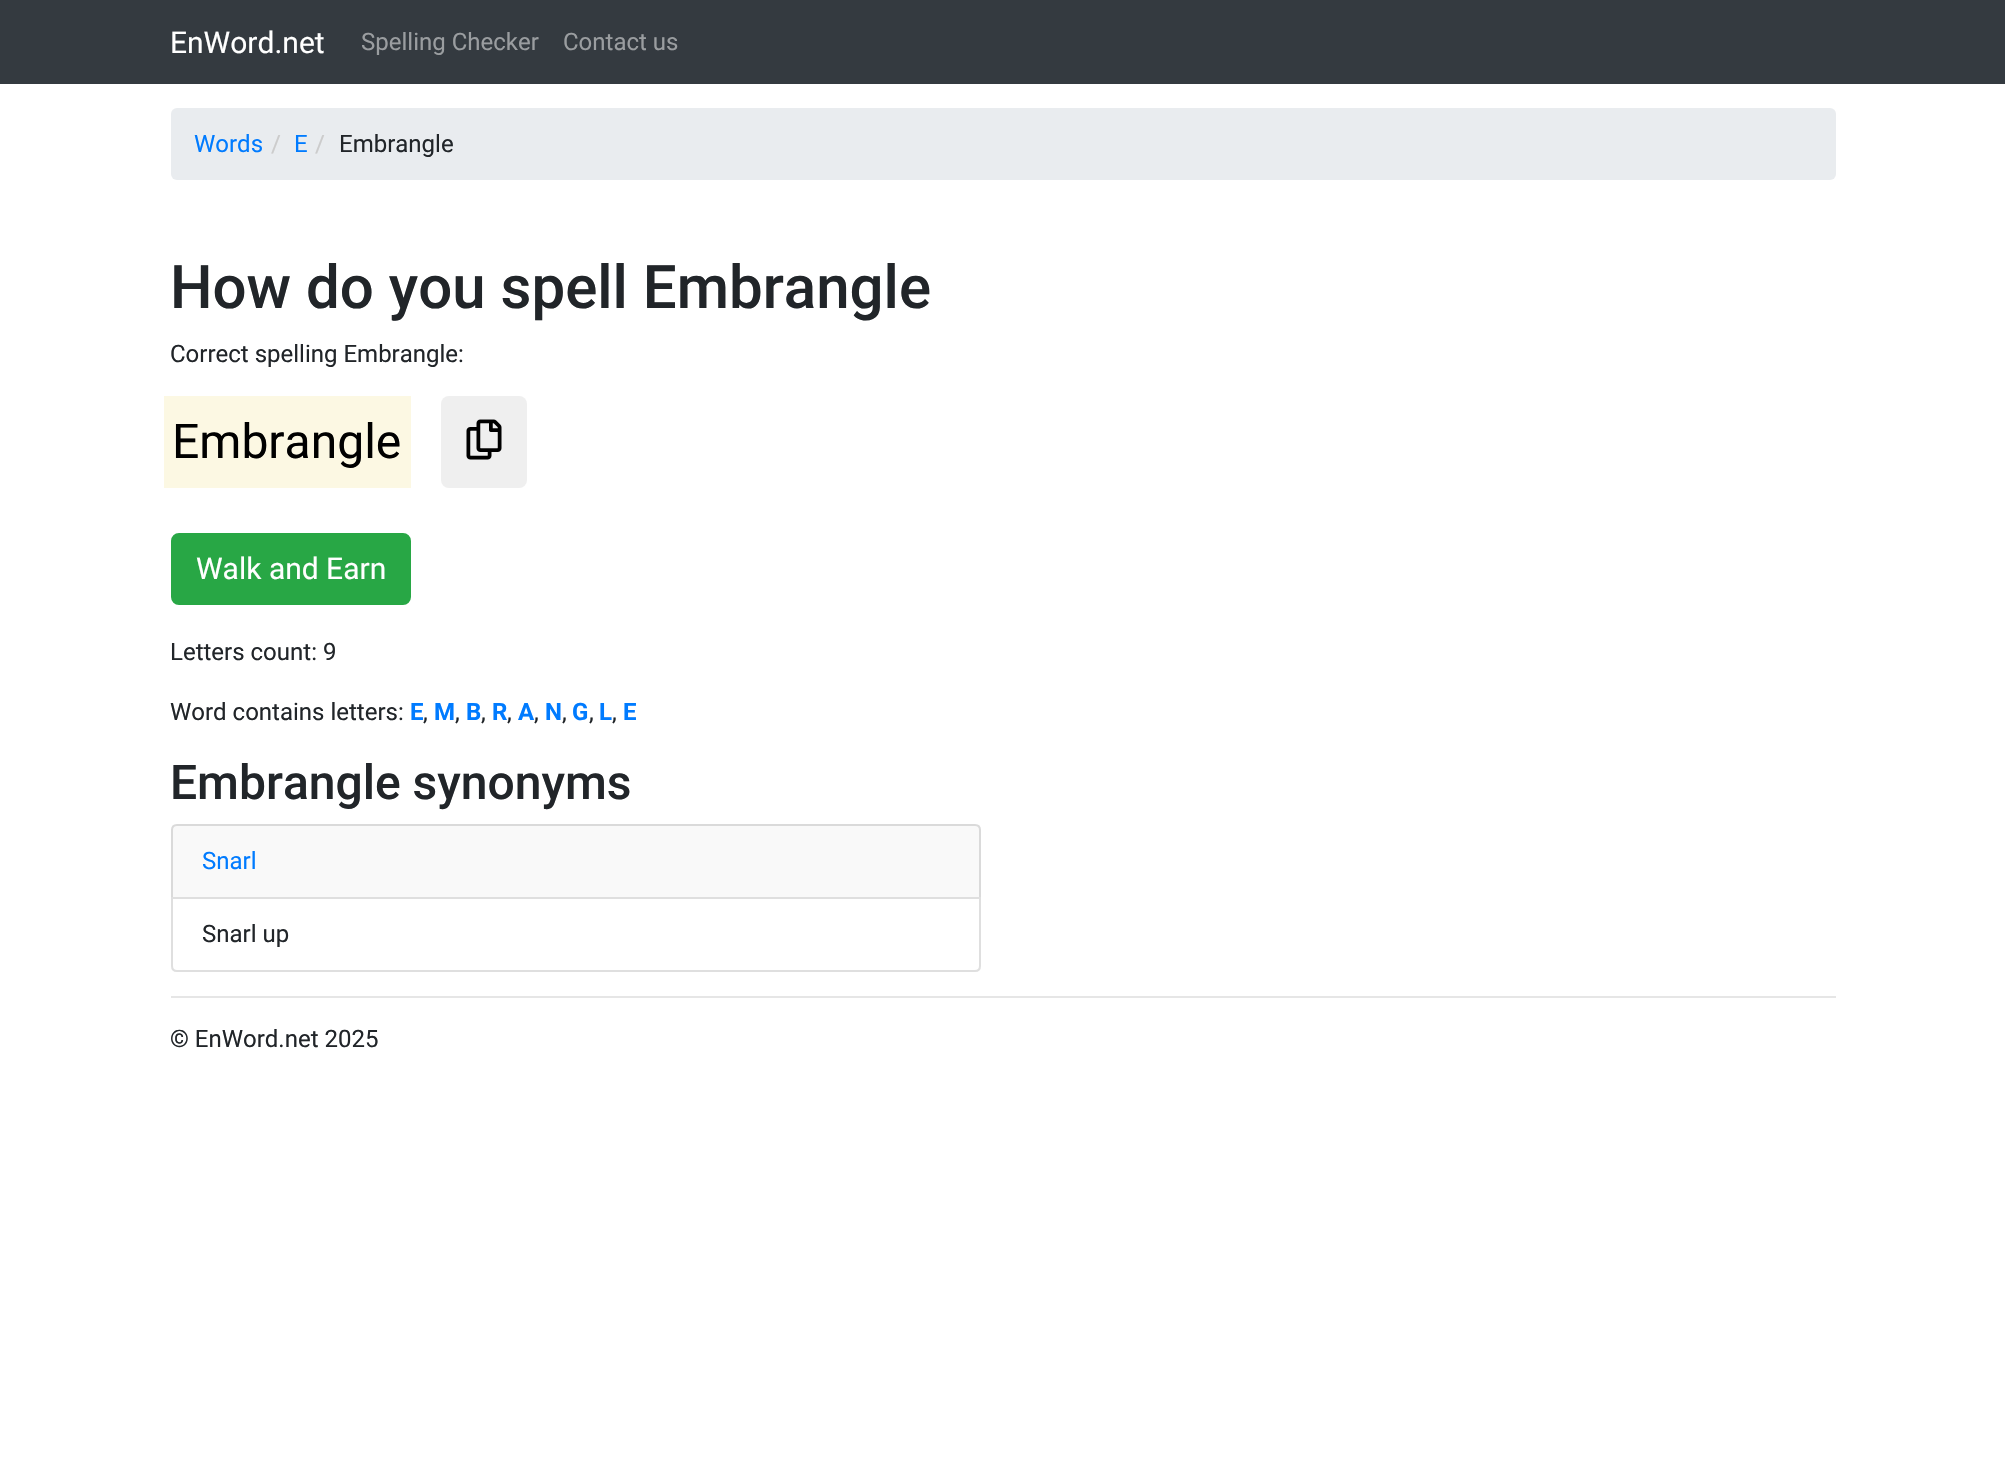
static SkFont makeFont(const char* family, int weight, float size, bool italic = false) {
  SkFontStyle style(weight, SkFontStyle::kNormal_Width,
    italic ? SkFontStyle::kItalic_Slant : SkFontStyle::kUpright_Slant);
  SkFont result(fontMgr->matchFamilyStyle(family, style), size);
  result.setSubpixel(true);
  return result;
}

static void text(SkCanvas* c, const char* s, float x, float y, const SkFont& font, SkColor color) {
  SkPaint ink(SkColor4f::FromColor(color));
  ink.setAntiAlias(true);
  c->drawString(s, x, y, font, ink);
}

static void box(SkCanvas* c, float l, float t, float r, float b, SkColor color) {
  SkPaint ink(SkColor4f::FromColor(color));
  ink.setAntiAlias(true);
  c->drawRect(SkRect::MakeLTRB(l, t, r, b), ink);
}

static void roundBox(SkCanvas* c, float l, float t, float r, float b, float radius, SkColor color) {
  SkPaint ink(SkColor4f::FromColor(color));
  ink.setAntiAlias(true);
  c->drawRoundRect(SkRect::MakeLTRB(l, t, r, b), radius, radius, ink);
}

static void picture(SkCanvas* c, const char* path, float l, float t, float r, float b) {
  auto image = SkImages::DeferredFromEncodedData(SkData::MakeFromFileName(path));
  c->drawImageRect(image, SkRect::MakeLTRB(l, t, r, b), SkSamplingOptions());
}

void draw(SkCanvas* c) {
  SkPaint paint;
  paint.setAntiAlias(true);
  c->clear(0xffffffff);
  box(c, 0, 0, 2005, 84, 0xff343a40);
  SkFont face1 = makeFont("Roboto", 400, 30);
  text(c, "EnWord.net", 170, 53, face1, 0xffffffff);
  SkFont face2 = makeFont("Roboto", 400, 24);
  text(c, "Spelling Checker", 361, 50, face2, 0xff9a9da0);
  text(c, "Contact us", 563, 50, face2, 0xff9a9da0);
  roundBox(c, 171, 108, 1836, 180, 6, 0xffe9ecef);
  text(c, "Words", 194, 152, face2, 0xff007bff);
  text(c, "/", 271, 152, face2, 0xffcccccc);
  text(c, "E", 294, 152, face2, 0xff007bff);
  text(c, "/", 315, 152, face2, 0xffcccccc);
  text(c, "Embrangle", 339, 152, face2, 0xff212529);
  SkFont face3 = makeFont("Roboto", 500, 60);
  text(c, "How do you spell Embrangle", 170, 308, face3, 0xff212529);
  text(c, "Correct spelling Embrangle:", 170, 362, face2, 0xff212529);
  box(c, 164, 396, 411, 488, 0xfffcf8e3);
  SkFont face4 = makeFont("Roboto", 400, 48);
  text(c, "Embrangle", 172, 458, face4, 0xff000000);
  roundBox(c, 441, 396, 527, 488, 8, 0xffefefef);
  picture(c, "img_01.png", 466, 419, 502, 460);
  paint.setColor(0xff28a745);
  c->drawRoundRect(SkRect::MakeLTRB(172, 534, 410, 604), 7, 7, paint);
  paint.setStyle(SkPaint::kStroke_Style);
  paint.setStrokeWidth(2);
  c->drawRoundRect(SkRect::MakeLTRB(172, 534, 410, 604), 7, 7, paint);
  text(c, "Walk and Earn", 196, 579, face1, 0xffffffff);
  text(c, "Letters count: 9", 170, 660, face2, 0xff212529);
  text(c, "Word contains letters:", 170, 720, face2, 0xff212529);
  SkFont face5 = makeFont("Roboto", 700, 24);
  text(c, "E", 410, 720, face5, 0xff007bff);
  text(c, ",", 423, 720, face2, 0xff212529);
  text(c, "M", 434, 720, face5, 0xff007bff);
  text(c, ",", 455, 720, face2, 0xff212529);
  text(c, "B", 466, 720, face5, 0xff007bff);
  text(c, ",", 481, 720, face2, 0xff212529);
  text(c, "R", 492, 720, face5, 0xff007bff);
  text(c, ",", 507, 720, face2, 0xff212529);
  text(c, "A", 518, 720, face5, 0xff007bff);
  text(c, ",", 534, 720, face2, 0xff212529);
  text(c, "N", 545, 720, face5, 0xff007bff);
  text(c, ",", 562, 720, face2, 0xff212529);
  text(c, "G", 572, 720, face5, 0xff007bff);
  text(c, ",", 589, 720, face2, 0xff212529);
  text(c, "L", 599, 720, face5, 0xff007bff);
  text(c, ",", 612, 720, face2, 0xff212529);
  text(c, "E", 623, 720, face5, 0xff007bff);
  SkFont face6 = makeFont("Roboto", 500, 48);
  text(c, "Embrangle synonyms", 170, 799, face6, 0xff212529);
  paint.setStyle(SkPaint::kFill_Style);
  paint.setColor(0xfff9f9f9);
  c->drawPath(SkPathBuilder().moveTo(177, 825).lineTo(975, 825).cubicTo(978, 825, 980, 827, 980, 830).lineTo(980, 898).lineTo(172, 898).lineTo(172, 830).cubicTo(172, 827, 174, 825, 177, 825).close().detach(), paint);
  paint.setStyle(SkPaint::kStroke_Style);
  paint.setColor(0xffdadada);
  c->drawPath(SkPathBuilder().moveTo(177, 825).lineTo(975, 825).cubicTo(978, 825, 980, 827, 980, 830).lineTo(980, 898).lineTo(172, 898).lineTo(172, 830).cubicTo(172, 827, 174, 825, 177, 825).close().detach(), paint);
  text(c, "Snarl", 202, 869, face2, 0xff007bff);
  paint.setStyle(SkPaint::kFill_Style);
  paint.setColor(0xffffffff);
  c->drawPath(SkPathBuilder().moveTo(172, 898).lineTo(980, 898).lineTo(980, 966).cubicTo(980, 969, 978, 971, 975, 971).lineTo(177, 971).cubicTo(174, 971, 172, 969, 172, 966).close().detach(), paint);
  paint.setStyle(SkPaint::kStroke_Style);
  paint.setColor(0xffdfdfdf);
  c->drawPath(SkPathBuilder().moveTo(172, 898).lineTo(980, 898).lineTo(980, 966).cubicTo(980, 969, 978, 971, 975, 971).lineTo(177, 971).cubicTo(174, 971, 172, 969, 172, 966).close().detach(), paint);
  text(c, "Snarl up", 202, 942, face2, 0xff212529);
  box(c, 171, 996, 1836, 998, 0xffe6e6e6);
  text(c, "© EnWord.net 2025", 170, 1047, face2, 0xff212529);
}
